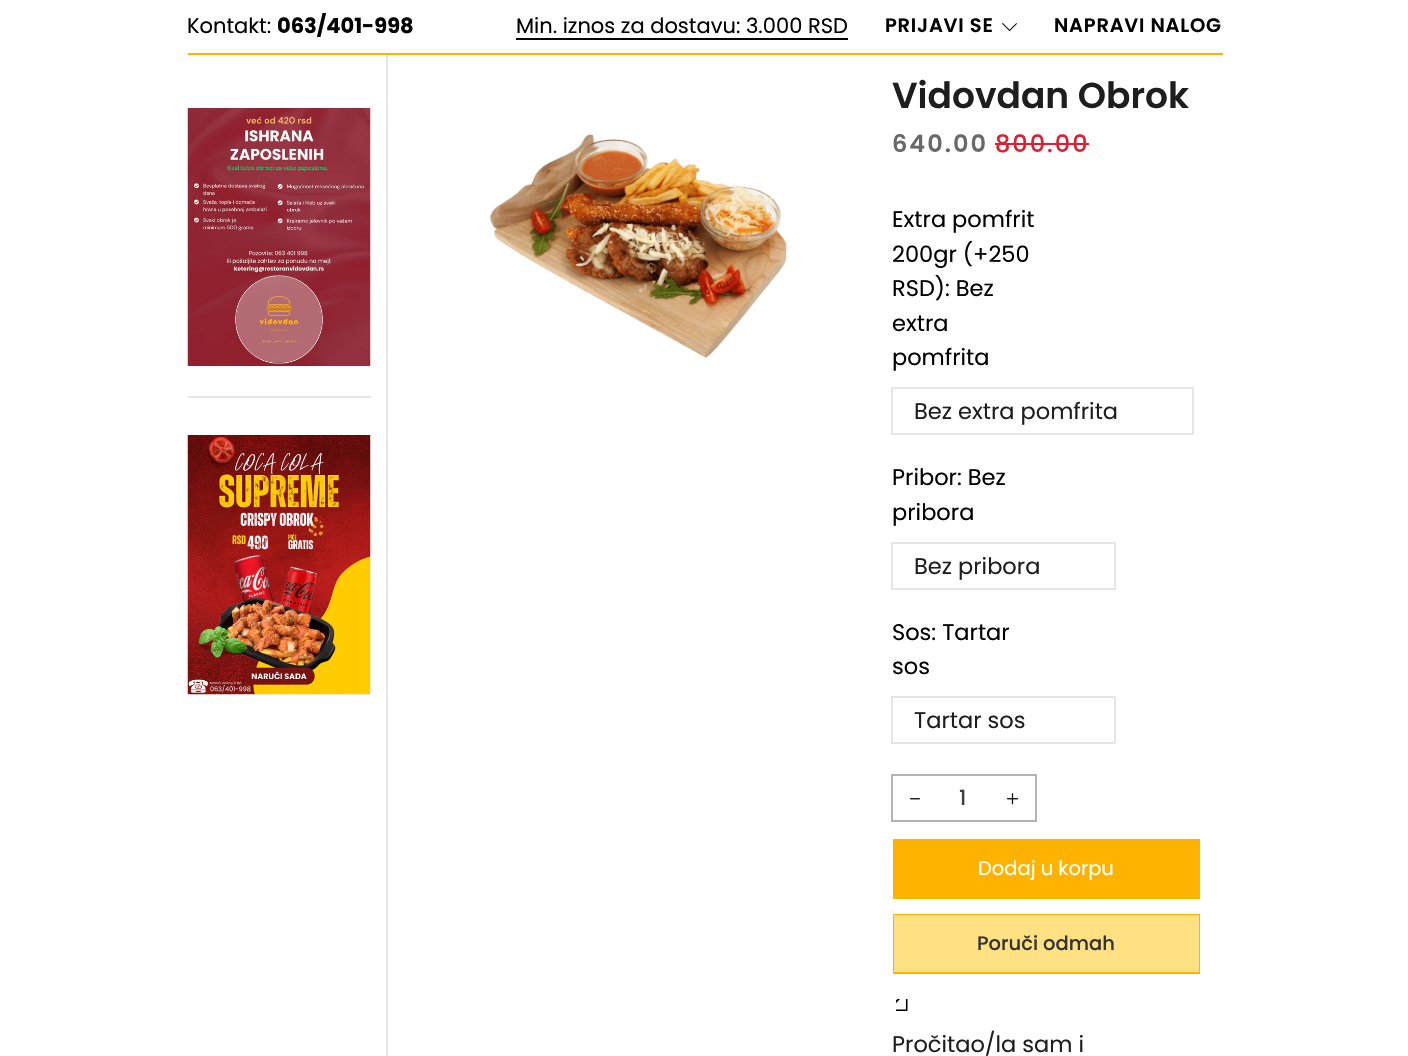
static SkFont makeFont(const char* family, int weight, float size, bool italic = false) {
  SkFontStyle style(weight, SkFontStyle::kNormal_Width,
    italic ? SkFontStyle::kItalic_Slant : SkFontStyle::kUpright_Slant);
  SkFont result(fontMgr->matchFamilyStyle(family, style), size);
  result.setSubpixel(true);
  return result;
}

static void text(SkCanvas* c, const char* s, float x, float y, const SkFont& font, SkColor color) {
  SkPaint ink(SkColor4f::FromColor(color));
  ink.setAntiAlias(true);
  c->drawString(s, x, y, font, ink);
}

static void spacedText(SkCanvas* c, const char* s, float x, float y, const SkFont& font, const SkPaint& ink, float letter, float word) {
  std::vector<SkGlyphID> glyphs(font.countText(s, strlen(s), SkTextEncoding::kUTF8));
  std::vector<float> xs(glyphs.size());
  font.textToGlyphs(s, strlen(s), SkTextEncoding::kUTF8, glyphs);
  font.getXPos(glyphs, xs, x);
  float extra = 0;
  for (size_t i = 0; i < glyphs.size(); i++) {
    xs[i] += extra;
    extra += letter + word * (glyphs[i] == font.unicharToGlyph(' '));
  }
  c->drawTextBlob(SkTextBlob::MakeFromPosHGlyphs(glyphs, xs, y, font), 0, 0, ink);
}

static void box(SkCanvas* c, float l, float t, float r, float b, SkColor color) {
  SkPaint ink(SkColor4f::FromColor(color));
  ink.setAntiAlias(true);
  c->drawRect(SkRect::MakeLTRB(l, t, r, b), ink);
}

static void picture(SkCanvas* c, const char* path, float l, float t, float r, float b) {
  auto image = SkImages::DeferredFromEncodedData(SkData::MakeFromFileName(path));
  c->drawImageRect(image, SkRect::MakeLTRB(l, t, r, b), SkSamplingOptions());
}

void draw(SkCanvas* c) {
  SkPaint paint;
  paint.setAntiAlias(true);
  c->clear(0xffffffff);
  box(c, 386, 54, 388, 1056, 0xffe6e6e6);
  box(c, 188, 53, 1223, 55, 0xffffb300);
  SkFont face1 = makeFont("Poppins", 400, 21);
  text(c, "Kontakt:", 187, 33, face1, 0xff000000);
  SkFont face2 = makeFont("Poppins", 700, 21);
  text(c, "063/401-998", 277, 33, face2, 0xff000000);
  text(c, "Min. iznos za dostavu: 3.000 RSD", 516, 33, face1, 0xff000000);
  box(c, 516, 38, 848, 40, 0xff000000);
  SkFont face3 = makeFont("Poppins", 600, 19.5f);
  paint.setColor(0xff000000);
  spacedText(c, "PRIJAVI SE", 885, 32, face3, paint, 0.75f, 0);
  picture(c, "img_01.png", 1002, 23, 1017, 31);
  spacedText(c, "NAPRAVI NALOG", 1054, 32, face3, paint, 0.75f, 0);
  box(c, 188, 396, 371, 398, 0xffe6e6e6);
  picture(c, "img_02.png", 187, 108, 371, 366);
  picture(c, "img_03.png", 187, 435, 371, 695);
  picture(c, "img_04.png", 490, 134, 787, 358);
  SkFont face4 = makeFont("Poppins", 600, 36);
  text(c, "Vidovdan Obrok", 892, 108, face4, 0xff1e1e1e);
  SkFont face5 = makeFont("Poppins", 600, 24);
  paint.setColor(0xff696969);
  spacedText(c, "640.00", 892, 152, face5, paint, 2, 0);
  SkFont face6 = makeFont("Poppins", 500, 24);
  paint.setColor(0xffdf1e31);
  spacedText(c, "800.00", 995, 152, face6, paint, 2, 0);
  box(c, 995, 143, 1089, 145, 0xffdf1e31);
  SkFont face7 = makeFont("Poppins", 400, 22.5f);
  text(c, "Extra pomfrit", 892, 227, face7, 0xff000000);
  text(c, "200gr (+250", 892, 262, face7, 0xff000000);
  text(c, "RSD): Bez", 892, 296, face7, 0xff000000);
  text(c, "extra", 892, 331, face7, 0xff000000);
  text(c, "pomfrita", 892, 365, face7, 0xff000000);
  paint.setStyle(SkPaint::kStroke_Style);
  paint.setStrokeWidth(2);
  paint.setColor(0xffe6e6e6);
  c->drawRect(SkRect::MakeLTRB(892, 388, 1193, 434), paint);
  text(c, "Bez extra pomfrita", 914, 419, face7, 0xff1e1e1e);
  text(c, "Pribor: Bez", 892, 485, face7, 0xff000000);
  text(c, "pribora", 892, 520, face7, 0xff000000);
  c->drawRect(SkRect::MakeLTRB(892, 543, 1115, 589), paint);
  text(c, "Bez pribora", 914, 574, face7, 0xff1e1e1e);
  text(c, "Sos: Tartar", 892, 640, face7, 0xff000000);
  text(c, "sos", 892, 674, face7, 0xff000000);
  c->drawRect(SkRect::MakeLTRB(892, 697, 1115, 743), paint);
  text(c, "Tartar sos", 914, 728, face7, 0xff1e1e1e);
  paint.setColor(0xffb3b3b3);
  c->drawRect(SkRect::MakeLTRB(892, 775, 1036, 821), paint);
  picture(c, "img_05.png", 910, 798, 920, 800);
  SkFont face8 = makeFont("Poppins", 500, 21);
  text(c, "1", 959, 805, face8, 0xff404040);
  picture(c, "img_06.png", 1006, 793, 1019, 805);
  box(c, 893, 839, 1200, 899, 0xffffb300);
  SkFont face9 = makeFont("Poppins", 400, 19.5f);
  text(c, "Dodaj u korpu", 978, 875, face9, 0xffffffff);
  paint.setColor(0xffffb300);
  c->drawRect(SkRect::MakeLTRB(894, 915, 1199, 973), paint);
  box(c, 894, 915, 1199, 972, 0xffffe082);
  SkFont face10 = makeFont("Poppins", 500, 19.5f);
  text(c, "Poruči odmah", 977, 950, face10, 0xff333333);
  picture(c, "img_07.png", 896, 999, 908, 1011);
  picture(c, "img_08.png", 896, 999, 900, 1003);
  text(c, "Pročitao/la sam i", 892, 1052, face7, 0xff1e1e1e);
}
